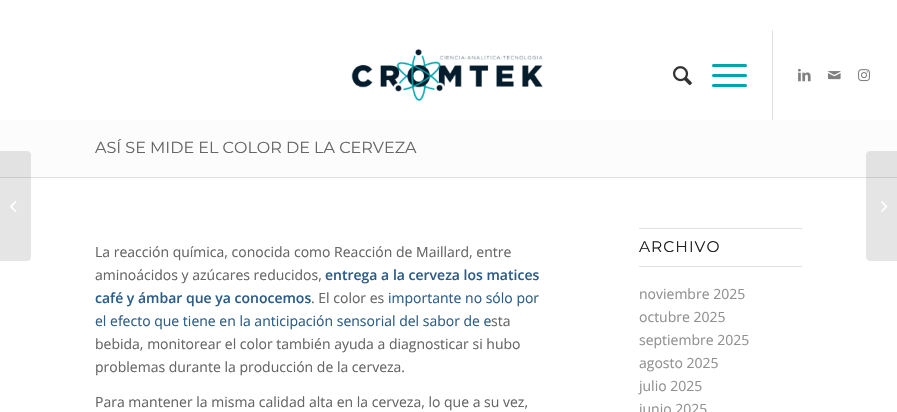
static SkFont makeFont(const char* family, int weight, float size, bool italic = false) {
  SkFontStyle style(weight, SkFontStyle::kNormal_Width,
    italic ? SkFontStyle::kItalic_Slant : SkFontStyle::kUpright_Slant);
  SkFont result(fontMgr->matchFamilyStyle(family, style), size);
  result.setSubpixel(true);
  return result;
}

static void text(SkCanvas* c, const char* s, float x, float y, const SkFont& font, SkColor color) {
  SkPaint ink(SkColor4f::FromColor(color));
  ink.setAntiAlias(true);
  c->drawString(s, x, y, font, ink);
}

static void spacedText(SkCanvas* c, const char* s, float x, float y, const SkFont& font, const SkPaint& ink, float letter, float word) {
  std::vector<SkGlyphID> glyphs(font.countText(s, strlen(s), SkTextEncoding::kUTF8));
  std::vector<float> xs(glyphs.size());
  font.textToGlyphs(s, strlen(s), SkTextEncoding::kUTF8, glyphs);
  font.getXPos(glyphs, xs, x);
  float extra = 0;
  for (size_t i = 0; i < glyphs.size(); i++) {
    xs[i] += extra;
    extra += letter + word * (glyphs[i] == font.unicharToGlyph(' '));
  }
  c->drawTextBlob(SkTextBlob::MakeFromPosHGlyphs(glyphs, xs, y, font), 0, 0, ink);
}

static void box(SkCanvas* c, float l, float t, float r, float b, SkColor color) {
  SkPaint ink(SkColor4f::FromColor(color));
  ink.setAntiAlias(true);
  c->drawRect(SkRect::MakeLTRB(l, t, r, b), ink);
}

static void roundBox(SkCanvas* c, float l, float t, float r, float b, float radius, SkColor color) {
  SkPaint ink(SkColor4f::FromColor(color));
  ink.setAntiAlias(true);
  c->drawRoundRect(SkRect::MakeLTRB(l, t, r, b), radius, radius, ink);
}

static void picture(SkCanvas* c, const char* path, float l, float t, float r, float b) {
  auto image = SkImages::DeferredFromEncodedData(SkData::MakeFromFileName(path));
  c->drawImageRect(image, SkRect::MakeLTRB(l, t, r, b), SkSamplingOptions());
}

void draw(SkCanvas* c) {
  SkPaint paint;
  paint.setAntiAlias(true);
  c->clear(0xffffffff);
  picture(c, "img_01.png", 351, 49, 543, 101);
  box(c, 772, 30, 773, 120, 0xffe1e1e1);
  picture(c, "img_02.png", 673, 66, 692, 86);
  roundBox(c, 712, 74, 747, 77, 1.5f, 0xff00a4ad);
  roundBox(c, 712, 64, 747, 67, 1.5f, 0xff00a4ad);
  roundBox(c, 712, 84, 747, 87, 1.5f, 0xff00a4ad);
  picture(c, "img_03.png", 798, 68, 811, 82);
  picture(c, "img_04.png", 828, 71, 841, 80);
  picture(c, "img_05.png", 858, 69, 870, 82);
  box(c, 0, 120, 897, 177, 0xfffcfcfc);
  box(c, 0, 177, 897, 178, 0xffe1e1e1);
  paint.setColor(0x1a000000);
  c->drawPath(SkPathBuilder().moveTo(0, 151).lineTo(27, 151).cubicTo(29, 151, 31, 153, 31, 155).lineTo(31, 257).cubicTo(31, 259, 29, 261, 27, 261).lineTo(0, 261).close().detach(), paint);
  picture(c, "img_06.png", 10, 201, 17, 212);
  SkFont face1 = makeFont("Montserrat", 100, 16);
  text(c, "ASÍ SE MIDE EL COLOR DE LA CERVEZA", 95, 153, face1, 0xff666666);
  SkFont face2 = makeFont("Open Sans", 400, 14);
  text(c, "La reacción química, conocida como Reacción de Maillard, entre", 95, 257, face2, 0xff666666);
  text(c, "aminoácidos y azúcares reducidos,", 95, 280, face2, 0xff666666);
  SkFont face3 = makeFont("Open Sans", 600, 14);
  text(c, "entrega a la cerveza los matices", 325, 280, face3, 0xff2d5c88);
  text(c, "café y ámbar que ya conocemos", 95, 303, face3, 0xff2d5c88);
  text(c, ". El color es", 311, 303, face2, 0xff666666);
  text(c, "importante no sólo por", 388, 303, face2, 0xff2d5c88);
  text(c, "el efecto que tiene en la anticipación sensorial del sabor de e", 95, 326, face2, 0xff2d5c88);
  text(c, "sta", 491, 326, face2, 0xff666666);
  text(c, "bebida, monitorear el color también ayuda a diagnosticar si hubo", 95, 349, face2, 0xff666666);
  text(c, "problemas durante la producción de la cerveza.", 95, 372, face2, 0xff666666);
  text(c, "Para mantener la misma calidad alta en la cerveza, lo que a su vez,", 95, 407, face2, 0xff666666);
  box(c, 639, 228, 802, 229, 0xffe1e1e1);
  box(c, 639, 266, 802, 267, 0xffe1e1e1);
  SkFont face4 = makeFont("Montserrat", 100, 15.5f);
  paint.setColor(0xff222222);
  spacedText(c, "ARCHIVO", 639, 252, face4, paint, 1, 0);
  text(c, "noviembre 2025", 639, 299, face2, 0xff919191);
  text(c, "octubre 2025", 639, 322, face2, 0xff919191);
  text(c, "septiembre 2025", 639, 345, face2, 0xff919191);
  text(c, "agosto 2025", 639, 368, face2, 0xff919191);
  text(c, "julio 2025", 639, 391, face2, 0xff919191);
  text(c, "junio 2025", 639, 414, face2, 0xff919191);
  paint.setColor(0x1a000000);
  c->drawPath(SkPathBuilder().moveTo(870, 151).lineTo(897, 151).lineTo(897, 261).lineTo(870, 261).cubicTo(868, 261, 866, 259, 866, 257).lineTo(866, 155).cubicTo(866, 153, 868, 151, 870, 151).close().detach(), paint);
  picture(c, "img_07.png", 881, 201, 888, 212);
}
